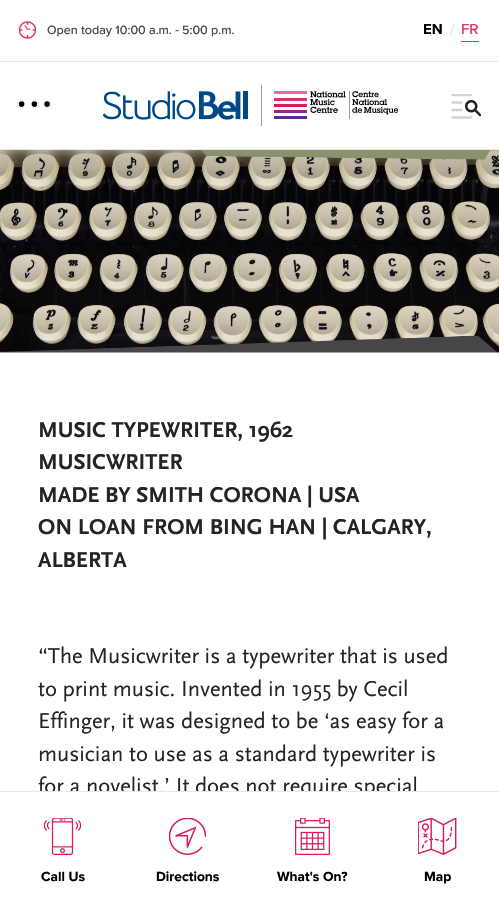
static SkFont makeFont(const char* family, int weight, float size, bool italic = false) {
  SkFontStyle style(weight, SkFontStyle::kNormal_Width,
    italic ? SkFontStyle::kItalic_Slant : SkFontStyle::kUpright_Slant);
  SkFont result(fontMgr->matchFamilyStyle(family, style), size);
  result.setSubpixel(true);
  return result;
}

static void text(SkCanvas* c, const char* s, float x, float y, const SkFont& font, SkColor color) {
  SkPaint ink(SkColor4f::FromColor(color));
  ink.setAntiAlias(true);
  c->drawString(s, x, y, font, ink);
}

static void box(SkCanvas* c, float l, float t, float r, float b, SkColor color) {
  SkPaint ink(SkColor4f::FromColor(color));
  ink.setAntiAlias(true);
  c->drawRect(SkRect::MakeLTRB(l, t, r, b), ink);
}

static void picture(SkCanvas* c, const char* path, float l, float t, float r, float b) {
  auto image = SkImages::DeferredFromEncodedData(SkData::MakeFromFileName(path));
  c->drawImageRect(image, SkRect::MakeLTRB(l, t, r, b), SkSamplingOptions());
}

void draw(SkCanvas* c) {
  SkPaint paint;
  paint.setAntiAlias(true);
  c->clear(0xffffffff);
  box(c, 0, 61, 499, 62, 0xffe8e8e8);
  picture(c, "img_01.png", 19, 21, 36, 39);
  SkFont face1 = makeFont("Proxima Nova", 500, 12.5f);
  text(c, "Open today 10:00 a.m.", 47, 34, face1, 0xff484848);
  SkFont face2 = makeFont("Liberation Sans", 400, 12.5f);
  text(c, "‐", 175, 34, face2, 0xff484848);
  text(c, "5:00 p.m.", 182, 34, face1, 0xff484848);
  SkFont face3 = makeFont("Proxima Nova", 700, 15);
  text(c, "EN", 423, 34, face3, 0xff000000);
  SkFont face4 = makeFont("Proxima Nova", 500, 15);
  text(c, "/", 450, 34, face4, 0xffe8e8e8);
  box(c, 461, 41, 479, 42, 0xffde3371);
  text(c, "FR", 461, 34, face4, 0xffde3371);
  box(c, 0, 149, 499, 150, 0xffe8e8e8);
  paint.setColor(0xff000000);
  c->drawCircle(21.6f, 104.1f, 2.8f, paint);
  c->drawCircle(34.4f, 104.1f, 2.8f, paint);
  c->drawCircle(47.1f, 104.1f, 2.8f, paint);
  picture(c, "img_02.png", 103, 85, 398, 126);
  picture(c, "img_03.png", 451, 94, 481, 119);
  picture(c, "img_04.png", 0, 150, 499, 353);
  SkFont face5 = makeFont("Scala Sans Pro", 700, 22.5f);
  text(c, "MUSIC TYPEWRITER, 1962", 38, 437, face5, 0xff212529);
  text(c, "MUSICWRITER", 38, 469, face5, 0xff212529);
  text(c, "MADE BY SMITH CORONA | USA", 38, 502, face5, 0xff212529);
  text(c, "ON LOAN FROM BING HAN | CALGARY,", 38, 534, face5, 0xff212529);
  text(c, "ALBERTA", 38, 567, face5, 0xff212529);
  SkFont face6 = makeFont("Scala Sans Pro", 400, 22.5f);
  text(c, "“The Musicwriter is a typewriter that is used", 38, 663, face6, 0xff212529);
  text(c, "to print music. Invented in 1955 by Cecil", 38, 696, face6, 0xff212529);
  text(c, "Effinger, it was designed to be ‘as easy for a", 38, 728, face6, 0xff212529);
  text(c, "musician to use as a standard typewriter is", 38, 761, face6, 0xff212529);
  text(c, "for a novelist.’ It does not require special", 38, 793, face6, 0xff212529);
  box(c, 39, 792, 416, 799, 0xffffffff);
  box(c, 0, 791, 499, 792, 0xffe8e8e8);
  picture(c, "img_05.png", 44, 818, 81, 855);
  SkFont face7 = makeFont("Proxima Nova", 700, 13.75f);
  text(c, "Call Us", 41, 881, face7, 0xff000000);
  picture(c, "img_06.png", 169, 818, 206, 855);
  text(c, "Directions", 156, 881, face7, 0xff000000);
  picture(c, "img_07.png", 295, 818, 330, 855);
  text(c, "What's On?", 277, 881, face7, 0xff000000);
  picture(c, "img_08.png", 418, 818, 457, 855);
  text(c, "Map", 424, 881, face7, 0xff000000);
}
